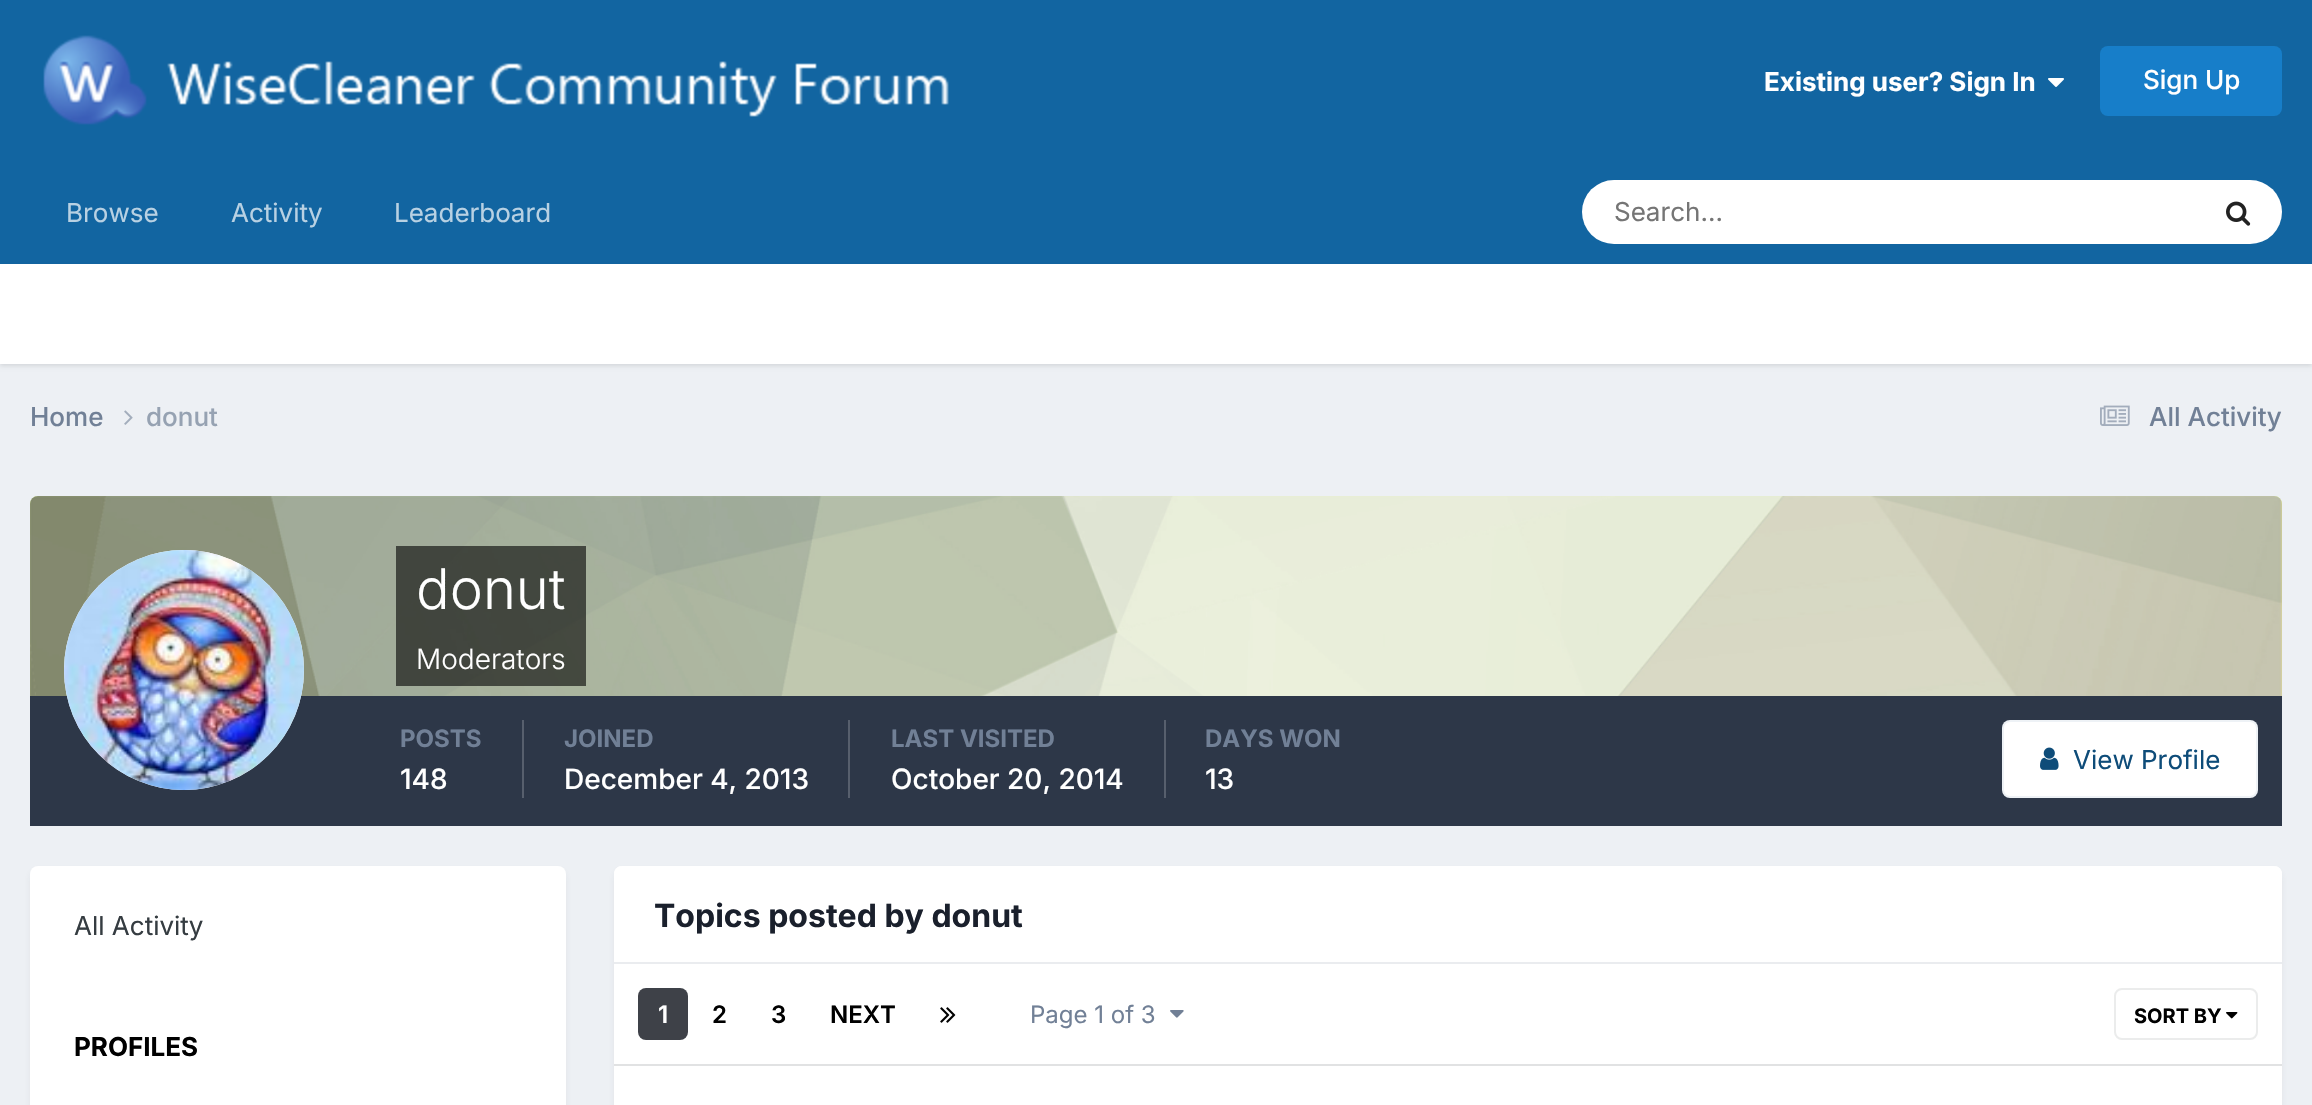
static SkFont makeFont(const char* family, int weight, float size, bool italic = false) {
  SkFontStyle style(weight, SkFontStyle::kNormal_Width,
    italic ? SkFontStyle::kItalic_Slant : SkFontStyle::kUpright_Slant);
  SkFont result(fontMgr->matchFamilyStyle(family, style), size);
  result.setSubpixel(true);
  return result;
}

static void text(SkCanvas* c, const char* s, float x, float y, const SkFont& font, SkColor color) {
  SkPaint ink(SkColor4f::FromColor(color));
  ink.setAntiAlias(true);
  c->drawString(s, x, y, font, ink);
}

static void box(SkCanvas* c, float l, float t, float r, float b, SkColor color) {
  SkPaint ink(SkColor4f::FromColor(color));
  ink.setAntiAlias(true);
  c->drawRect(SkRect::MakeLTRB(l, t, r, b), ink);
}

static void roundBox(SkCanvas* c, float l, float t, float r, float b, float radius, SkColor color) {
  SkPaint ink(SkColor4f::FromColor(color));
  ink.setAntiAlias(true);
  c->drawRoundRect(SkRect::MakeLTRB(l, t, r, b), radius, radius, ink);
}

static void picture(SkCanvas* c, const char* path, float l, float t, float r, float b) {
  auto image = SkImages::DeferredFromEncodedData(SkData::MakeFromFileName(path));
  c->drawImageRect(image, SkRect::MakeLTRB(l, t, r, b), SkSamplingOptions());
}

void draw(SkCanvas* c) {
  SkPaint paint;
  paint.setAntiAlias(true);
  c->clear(0xffedf0f4);
  box(c, 0, 0, 2312, 264, 0xff1265a1);
  picture(c, "img_01.png", 43, 35, 949, 125);
  SkFont face1 = makeFont("Inter", 700, 26);
  text(c, "Existing user? Sign In", 1764, 91, face1, 0xffffffff);
  picture(c, "img_02.png", 2048, 78, 2064, 87);
  roundBox(c, 2100, 46, 2282, 116, 8, 0xff177ec9);
  SkFont face2 = makeFont("Inter", 500, 26);
  text(c, "Sign Up", 2143, 89, face2, 0xffffffff);
  SkFont face3 = makeFont("Inter", 400, 26);
  text(c, "Browse", 66, 222, face3, 0xffb8d1e3);
  text(c, "Activity", 231, 222, face3, 0xffb8d1e3);
  text(c, "Leaderboard", 394, 222, face3, 0xffb8d1e3);
  roundBox(c, 1582, 180, 2282, 244, 32, 0xffffffff);
  text(c, "Search...", 1614, 221, face3, 0xff757575);
  picture(c, "img_03.png", 2226, 201, 2251, 226);
  paint.setColor(0x1a000000);
  paint.setMaskFilter(SkMaskFilter::MakeBlur(kNormal_SkBlurStyle, 2));
  c->drawRect(SkRect::MakeLTRB(0, 266, 2312, 366), paint);
  paint.setMaskFilter(nullptr);
  box(c, 0, 264, 2312, 364, 0xffffffff);
  text(c, "Home", 30, 426, face2, 0xff718096);
  picture(c, "img_04.png", 124, 410, 133, 425);
  text(c, "donut", 146, 426, face2, 0xff96a2b2);
  picture(c, "img_05.png", 2100, 405, 2130, 426);
  text(c, "All Activity", 2149, 426, face2, 0xff718096);
  paint.setColor(0xffe7ff99);
  c->drawPath(SkPathBuilder().moveTo(38, 496).lineTo(2274, 496).cubicTo(2278.5f, 496, 2282, 499.5f, 2282, 504).lineTo(2282, 696).lineTo(30, 696).lineTo(30, 504).cubicTo(30, 499.5f, 33.5f, 496, 38, 496).close().detach(), paint);
  picture(c, "img_06.png", 30, 496, 2282, 696);
  box(c, 30, 696, 2282, 826, 0xff2d3748);
  paint.setColor(0xffffffff);
  c->drawCircle(184, 670, 120, paint);
  picture(c, "img_07.png", 64, 550, 304, 790);
  box(c, 396, 546, 586, 630, 0x99000000);
  SkFont face4 = makeFont("Inter", 300, 56);
  text(c, "donut", 416, 609, face4, 0xffffffff);
  box(c, 396, 630, 586, 686, 0x99000000);
  SkFont face5 = makeFont("Inter", 300, 28);
  text(c, "Moderators", 416, 669, face5, 0xffffffff);
  box(c, 522, 720, 524, 798, 0xff575f6d);
  SkFont face6 = makeFont("Inter", 700, 24);
  text(c, "POSTS", 400, 747, face6, 0xff718096);
  SkFont face7 = makeFont("Inter", 500, 28);
  text(c, "148", 400, 789, face7, 0xffffffff);
  box(c, 848, 720, 850, 798, 0xff575f6d);
  text(c, "JOINED", 564, 747, face6, 0xff718096);
  text(c, "December 4, 2013", 564, 789, face7, 0xffffffff);
  box(c, 1164, 720, 1166, 798, 0xff575f6d);
  text(c, "LAST VISITED", 891, 747, face6, 0xff718096);
  text(c, "October 20, 2014", 891, 789, face7, 0xffffffff);
  text(c, "DAYS WON", 1205, 747, face6, 0xff718096);
  text(c, "13", 1205, 789, face7, 0xffffffff);
  roundBox(c, 2002, 720, 2258, 798, 8, 0xffffffff);
  paint.setStyle(SkPaint::kStroke_Style);
  paint.setStrokeWidth(2);
  paint.setColor(0x120e4c79);
  c->drawRoundRect(SkRect::MakeLTRB(2003, 721, 2257, 797), 7, 7, paint);
  picture(c, "img_08.png", 2040, 747, 2059, 770);
  text(c, "View Profile", 2073, 769, face3, 0xff0e4c79);
  paint.setStyle(SkPaint::kFill_Style);
  paint.setColor(0x1a2d3748);
  paint.setMaskFilter(SkMaskFilter::MakeBlur(kNormal_SkBlurStyle, 4));
  c->drawRoundRect(SkRect::MakeLTRB(32, 872, 564, 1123), 6, 6, paint);
  paint.setMaskFilter(nullptr);
  roundBox(c, 30, 866, 566, 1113, 8, 0xffffffff);
  text(c, "All Activity", 74, 935, face3, 0xff353c41);
  text(c, "PROFILES", 74, 1056, face1, 0xff000000);
  paint.setMaskFilter(SkMaskFilter::MakeBlur(kNormal_SkBlurStyle, 4));
  c->drawRoundRect(SkRect::MakeLTRB(616, 872, 2280, 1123), 6, 6, paint);
  paint.setMaskFilter(nullptr);
  roundBox(c, 614, 866, 2282, 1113, 8, 0xffffffff);
  paint.setColor(0xffffffff);
  c->drawPath(SkPathBuilder().moveTo(622, 866).lineTo(2274, 866).cubicTo(2278.5f, 866, 2282, 869.5f, 2282, 874).lineTo(2282, 964).lineTo(614, 964).lineTo(614, 874).cubicTo(614, 869.5f, 617.5f, 866, 622, 866).close().detach(), paint);
  box(c, 614, 962, 2282, 964, 0xffeaecef);
  SkFont face8 = makeFont("Inter", 700, 32);
  text(c, "Topics posted by donut", 654, 927, face8, 0xff1a202c);
  box(c, 614, 1064, 2282, 1066, 0xffe1e2e3);
  roundBox(c, 638, 988, 688, 1040, 8, 0xff3e4148);
  SkFont face9 = makeFont("Inter", 600, 24);
  text(c, "1", 658, 1023, face9, 0xffffffff);
  text(c, "2", 712, 1023, face9, 0xff000000);
  text(c, "3", 771, 1023, face9, 0xff000000);
  text(c, "NEXT", 830, 1023, face9, 0xff000000);
  picture(c, "img_09.png", 940, 1007, 956, 1023);
  SkFont face10 = makeFont("Inter", 400, 24);
  text(c, "Page 1 of 3", 1030, 1023, face10, 0xff718096);
  picture(c, "img_10.png", 1170, 1010, 1184, 1018);
  picture(c, "img_11.png", 2226, 1012, 2238, 1019);
  paint.setStyle(SkPaint::kStroke_Style);
  paint.setColor(0xffebecec);
  c->drawRoundRect(SkRect::MakeLTRB(2115, 989, 2257, 1039), 7, 7, paint);
  SkFont face11 = makeFont("Inter", 700, 20);
  text(c, "SORT BY", 2134, 1023, face11, 0xff000000);
}
